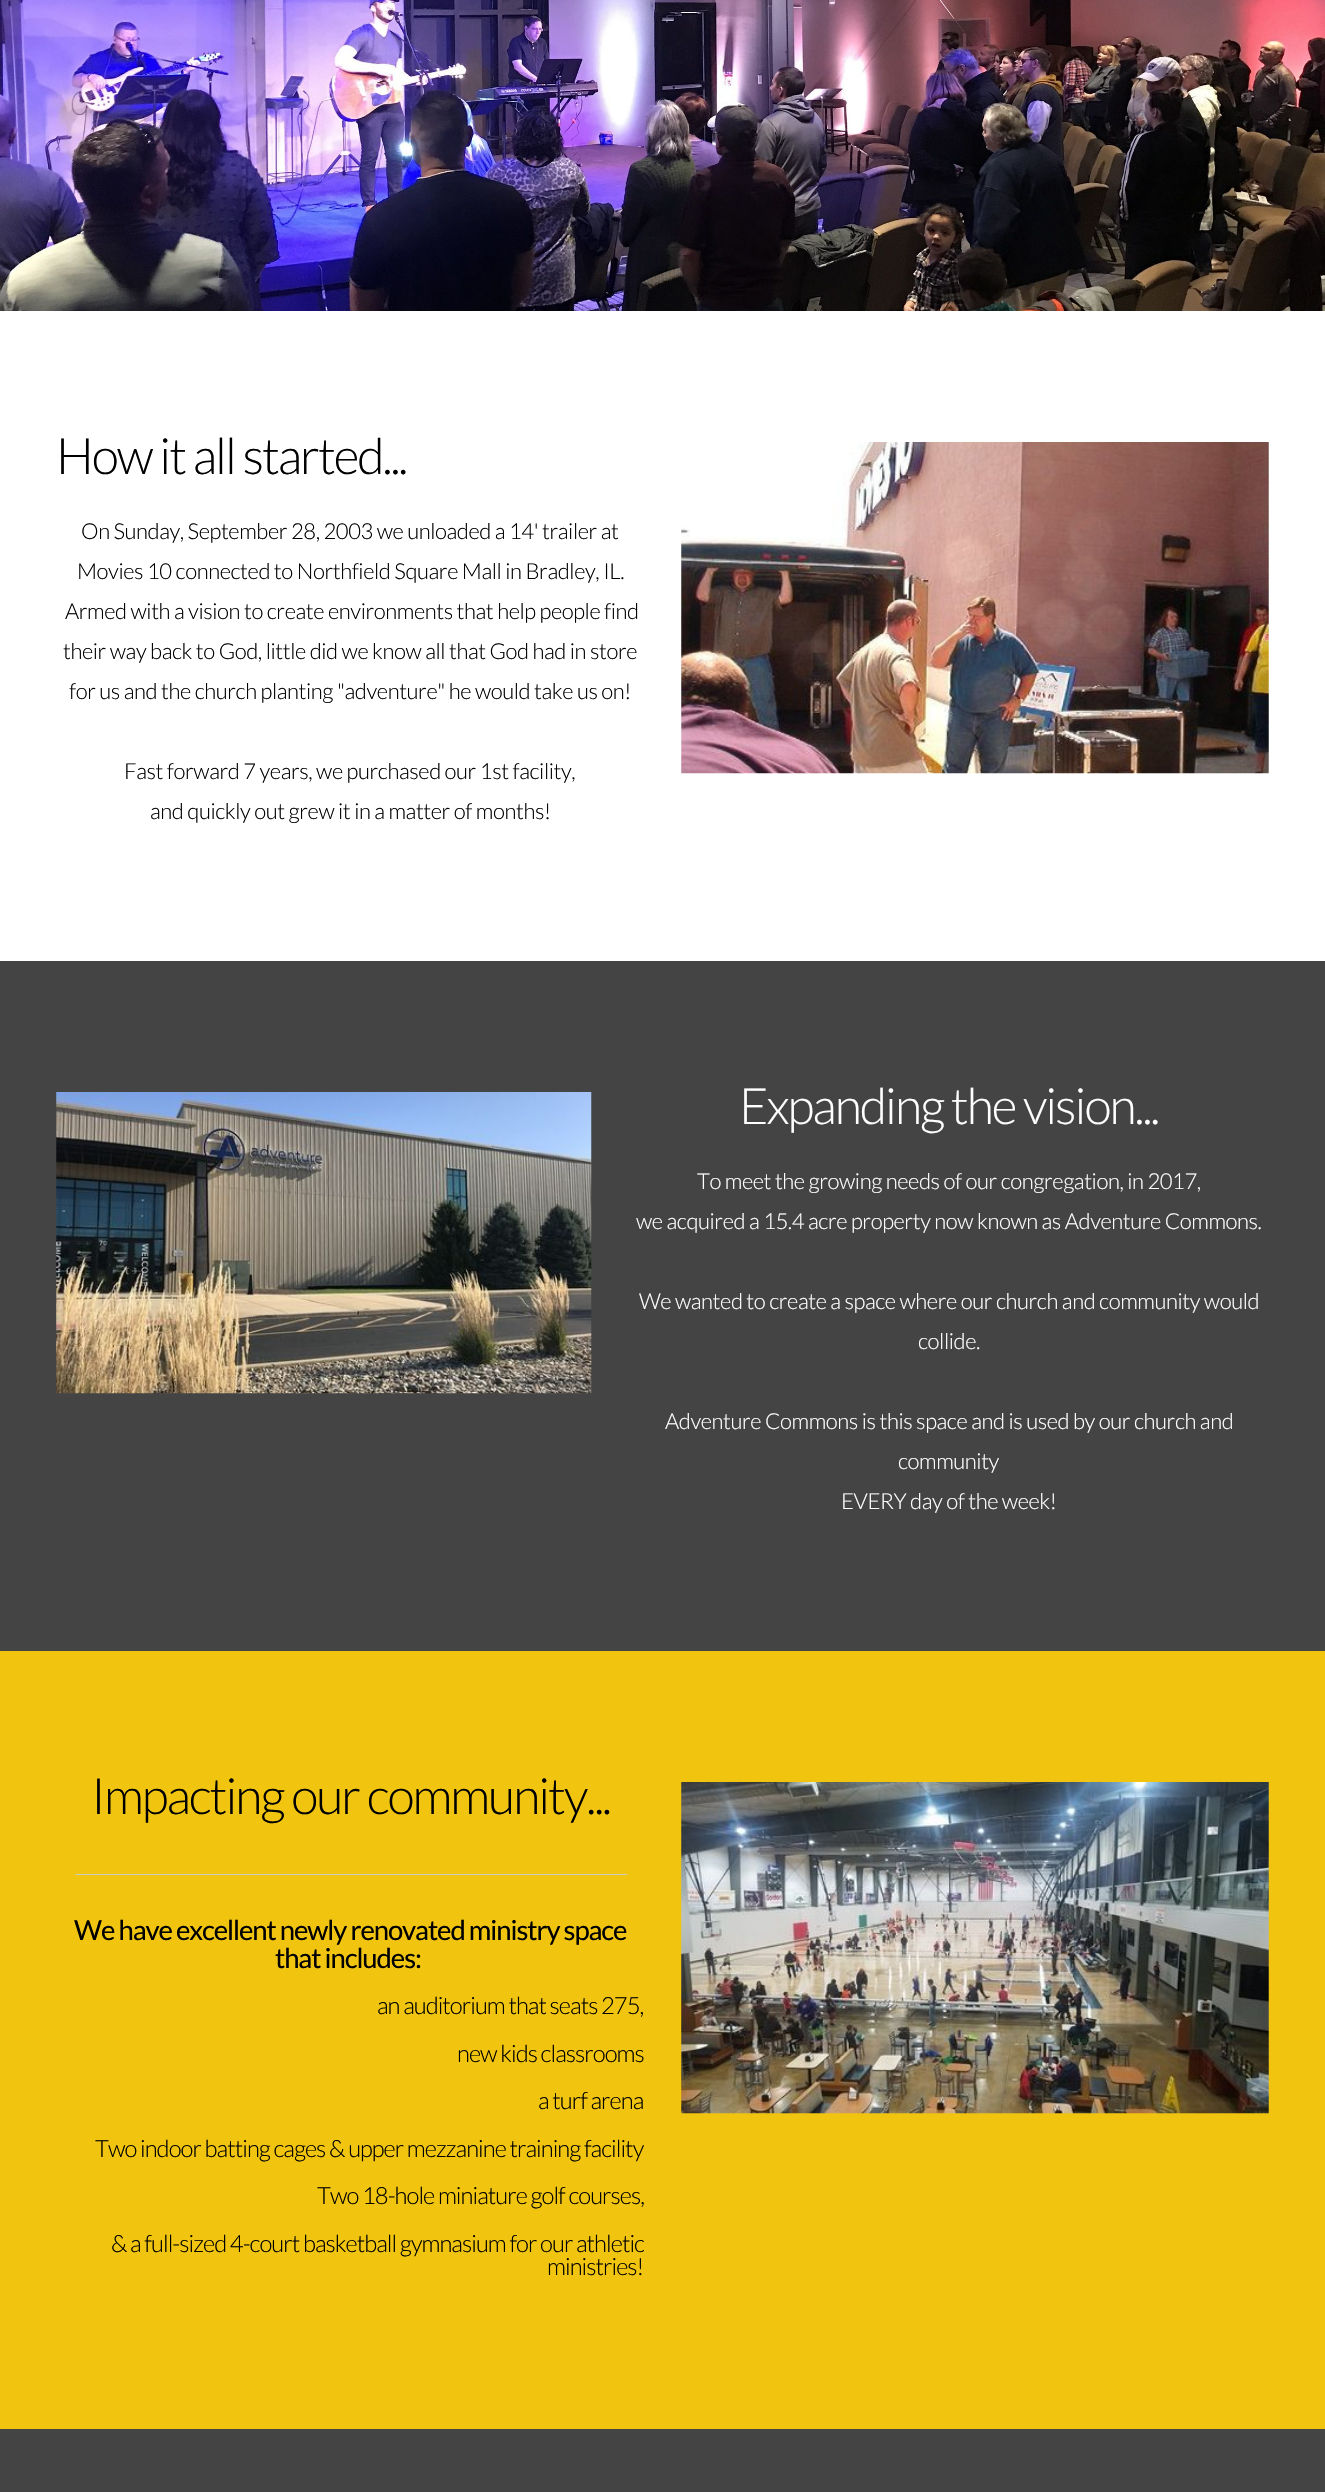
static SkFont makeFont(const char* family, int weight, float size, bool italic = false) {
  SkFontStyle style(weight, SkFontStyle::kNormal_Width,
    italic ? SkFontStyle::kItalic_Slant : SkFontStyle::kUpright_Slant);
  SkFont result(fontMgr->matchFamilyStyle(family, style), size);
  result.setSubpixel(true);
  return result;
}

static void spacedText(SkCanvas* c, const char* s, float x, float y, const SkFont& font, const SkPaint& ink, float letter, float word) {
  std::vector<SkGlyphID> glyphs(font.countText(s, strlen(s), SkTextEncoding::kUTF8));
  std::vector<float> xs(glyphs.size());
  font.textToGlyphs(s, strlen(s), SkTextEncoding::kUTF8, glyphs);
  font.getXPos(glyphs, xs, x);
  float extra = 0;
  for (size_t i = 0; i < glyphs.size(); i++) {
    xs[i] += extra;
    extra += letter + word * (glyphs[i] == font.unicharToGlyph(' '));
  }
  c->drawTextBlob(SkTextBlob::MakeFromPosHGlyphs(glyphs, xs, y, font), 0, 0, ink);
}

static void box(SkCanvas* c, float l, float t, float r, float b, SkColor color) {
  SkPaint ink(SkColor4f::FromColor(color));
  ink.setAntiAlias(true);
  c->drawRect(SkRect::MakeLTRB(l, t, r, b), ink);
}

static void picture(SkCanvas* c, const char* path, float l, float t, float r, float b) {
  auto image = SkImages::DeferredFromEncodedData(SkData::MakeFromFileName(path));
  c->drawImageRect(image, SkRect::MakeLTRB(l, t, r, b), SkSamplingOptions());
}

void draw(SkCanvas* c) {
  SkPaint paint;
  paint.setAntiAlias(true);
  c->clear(0xffffffff);
  picture(c, "img_01.png", 0, 0, 1325, 311);
  SkFont face1 = makeFont("Lato", 300, 50);
  paint.setColor(0xff000000);
  spacedText(c, "How it all started...", 56, 474, face1, paint, -2, 0);
  SkFont face2 = makeFont("Lato", 300, 22);
  spacedText(c, "On Sunday, September 28, 2003 we unloaded a 14' trailer at", 81, 539, face2, paint, -0.4f, 0);
  spacedText(c, "Movies 10 connected to Northfield Square Mall in Bradley, IL.", 77, 579, face2, paint, -0.4f, 0);
  spacedText(c, "Armed with a vision to create environments that help people find", 65, 619, face2, paint, -0.4f, 0);
  spacedText(c, "their way back to God, little did we know all that God had in store", 63, 659, face2, paint, -0.4f, 0);
  spacedText(c, "for us and the church planting \"adventure\" he would take us on!", 69, 699, face2, paint, -0.4f, 0);
  spacedText(c, "Fast forward 7 years, we purchased our 1st facility,", 124, 779, face2, paint, -0.4f, 0);
  spacedText(c, "and quickly out grew it in a matter of months!", 150, 819, face2, paint, -0.4f, 0);
  picture(c, "img_02.png", 681, 442, 1269, 774);
  box(c, 0, 961, 1325, 1651, 0xff444444);
  picture(c, "img_03.png", 56, 1092, 592, 1394);
  paint.setColor(0xffffffff);
  spacedText(c, "Expanding the vision...", 739, 1124, face1, paint, -2, 0);
  spacedText(c, "To meet the growing needs of our congregation, in 2017,", 697, 1189, face2, paint, -0.4f, 0);
  spacedText(c, "we acquired a 15.4 acre property now known as Adventure Commons.", 636, 1229, face2, paint, -0.4f, 0);
  spacedText(c, "We wanted to create a space where our church and community would", 639, 1309, face2, paint, -0.4f, 0);
  spacedText(c, "collide.", 918, 1349, face2, paint, -0.4f, 0);
  spacedText(c, "Adventure Commons is this space and is used by our church and", 665, 1429, face2, paint, -0.4f, 0);
  spacedText(c, "community", 898, 1469, face2, paint, -0.4f, 0);
  spacedText(c, "EVERY day of the week!", 841, 1509, face2, paint, -0.4f, 0);
  box(c, 0, 1651, 1325, 2429, 0xfff1c40f);
  paint.setColor(0xff000000);
  spacedText(c, "Impacting our community...", 91, 1814, face1, paint, -2, 0);
  paint.setColor(0xffcccccc);
  c->drawPath(SkPathBuilder().moveTo(628, 1875).lineTo(75, 1875).lineTo(76, 1874).lineTo(626, 1874).close().detach(), paint);
  SkFont face3 = makeFont("Lato", 400, 27.5f);
  paint.setColor(0xff000000);
  spacedText(c, "We have excellent newly renovated ministry space", 74, 1940, face3, paint, -1.1f, 0);
  spacedText(c, "that includes:", 275, 1968, face3, paint, -1.1f, 0);
  SkFont face4 = makeFont("Lato", 300, 23.75f);
  spacedText(c, "an auditorium that seats 275,", 377, 2014, face4, paint, -0.95f, 0);
  spacedText(c, "new kids classrooms", 457, 2062, face4, paint, -0.95f, 0);
  spacedText(c, "a turf arena", 538, 2109, face4, paint, -0.95f, 0);
  spacedText(c, "Two indoor batting cages & upper mezzanine training facility", 95, 2157, face4, paint, -0.95f, 0);
  spacedText(c, "Two 18-hole miniature golf courses,", 317, 2204, face4, paint, -0.95f, 0);
  spacedText(c, "& a full-sized 4-court basketball gymnasium for our athletic", 111, 2252, face4, paint, -0.95f, 0);
  spacedText(c, "ministries!", 547, 2275, face4, paint, -0.95f, 0);
  picture(c, "img_04.png", 681, 1782, 1269, 2114);
  box(c, 0, 2429, 1325, 2492, 0xff444444);
}
